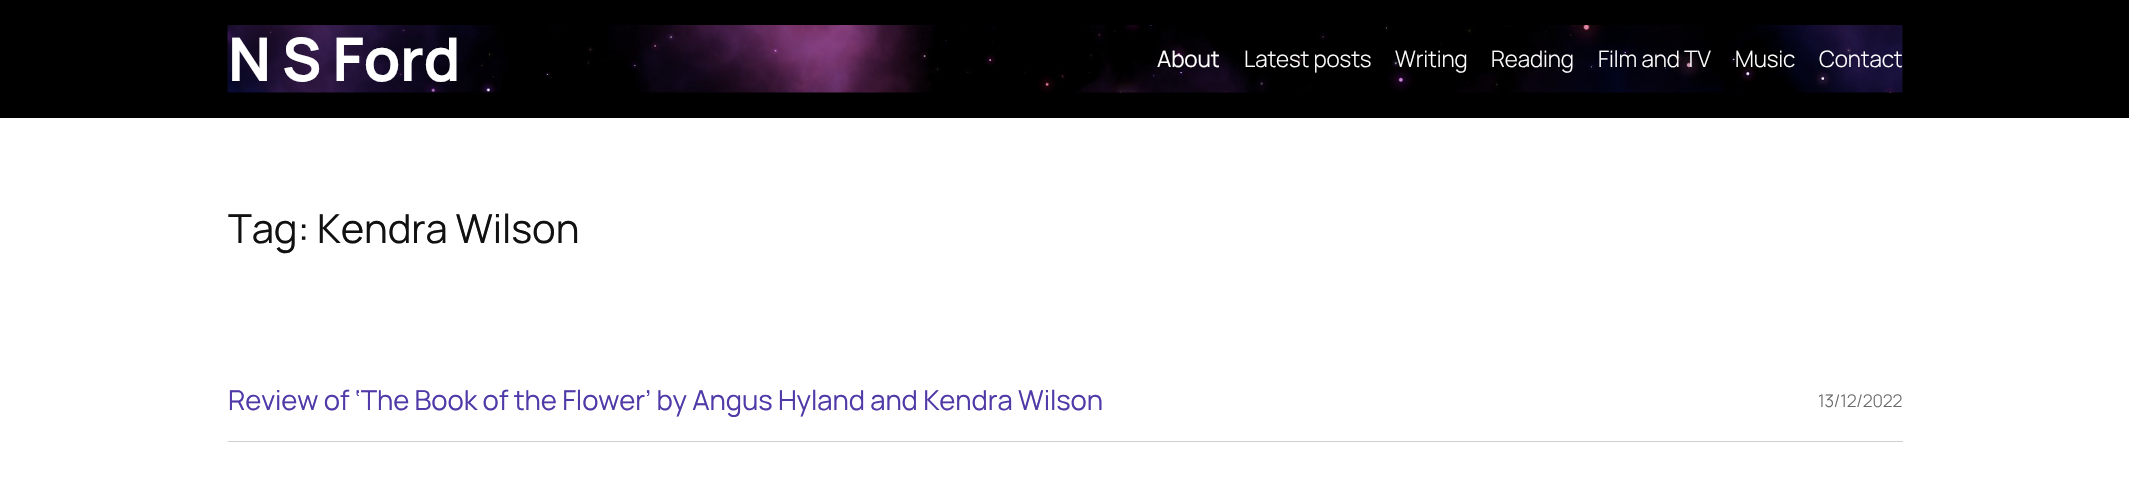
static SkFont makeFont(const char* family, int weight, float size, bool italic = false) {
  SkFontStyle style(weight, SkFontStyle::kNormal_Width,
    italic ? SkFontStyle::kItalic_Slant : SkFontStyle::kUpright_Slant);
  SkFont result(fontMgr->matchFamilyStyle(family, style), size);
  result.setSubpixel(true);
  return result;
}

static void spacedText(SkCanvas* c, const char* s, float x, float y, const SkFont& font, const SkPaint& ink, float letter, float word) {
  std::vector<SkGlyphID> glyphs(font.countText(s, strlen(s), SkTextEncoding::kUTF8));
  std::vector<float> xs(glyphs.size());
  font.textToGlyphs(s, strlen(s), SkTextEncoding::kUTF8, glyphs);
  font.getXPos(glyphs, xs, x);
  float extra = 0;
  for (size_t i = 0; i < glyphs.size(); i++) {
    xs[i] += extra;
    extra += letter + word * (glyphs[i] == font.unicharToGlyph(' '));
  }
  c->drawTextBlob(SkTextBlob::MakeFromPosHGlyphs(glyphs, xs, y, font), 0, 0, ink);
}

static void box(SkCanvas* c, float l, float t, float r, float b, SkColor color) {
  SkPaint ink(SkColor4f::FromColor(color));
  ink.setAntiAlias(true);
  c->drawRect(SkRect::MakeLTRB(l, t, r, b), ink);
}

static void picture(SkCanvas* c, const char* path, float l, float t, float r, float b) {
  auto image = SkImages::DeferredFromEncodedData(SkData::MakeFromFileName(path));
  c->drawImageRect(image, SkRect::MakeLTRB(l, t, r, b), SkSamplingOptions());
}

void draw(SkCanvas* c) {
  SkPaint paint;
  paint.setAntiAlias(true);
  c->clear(0xffffffff);
  box(c, 0, 0, 2129, 118, 0xff000000);
  picture(c, "img_01.png", 227, 25, 1903, 93);
  SkFont face1 = makeFont("Manrope", 700, 60);
  paint.setColor(0xffffffff);
  spacedText(c, "N S Ford", 228, 81, face1, paint, -0.5f, 0);
  SkFont face2 = makeFont("Manrope", 400, 22.5f);
  spacedText(c, "About", 1157, 67, face2, paint, -0.12f, 0);
  SkFont face3 = makeFont("Manrope", 300, 22.5f);
  spacedText(c, "Latest posts", 1244, 67, face3, paint, -0.12f, 0);
  spacedText(c, "Writing", 1395, 67, face3, paint, -0.12f, 0);
  spacedText(c, "Reading", 1491, 67, face3, paint, -0.12f, 0);
  spacedText(c, "Film and TV", 1598, 67, face3, paint, -0.12f, 0);
  spacedText(c, "Music", 1735, 67, face3, paint, -0.12f, 0);
  spacedText(c, "Contact", 1819, 67, face3, paint, -0.12f, 0);
  SkFont face4 = makeFont("Manrope", 400, 40);
  paint.setColor(0xff111111);
  spacedText(c, "Tag: Kendra Wilson", 228, 243, face4, paint, -0.12f, 0);
  box(c, 228, 441, 1903, 442, 0xffcfcfcf);
  SkFont face5 = makeFont("Manrope", 400, 27.5f);
  paint.setColor(0xff503aa8);
  spacedText(c, "Review of ‘The Book of the Flower’ by Angus Hyland and Kendra Wilson", 228, 410, face5, paint, -0.12f, 0);
  SkFont face6 = makeFont("Manrope", 300, 17.5f);
  paint.setColor(0xff686868);
  spacedText(c, "13/12/2022", 1818, 407, face6, paint, -0.12f, 0);
}
